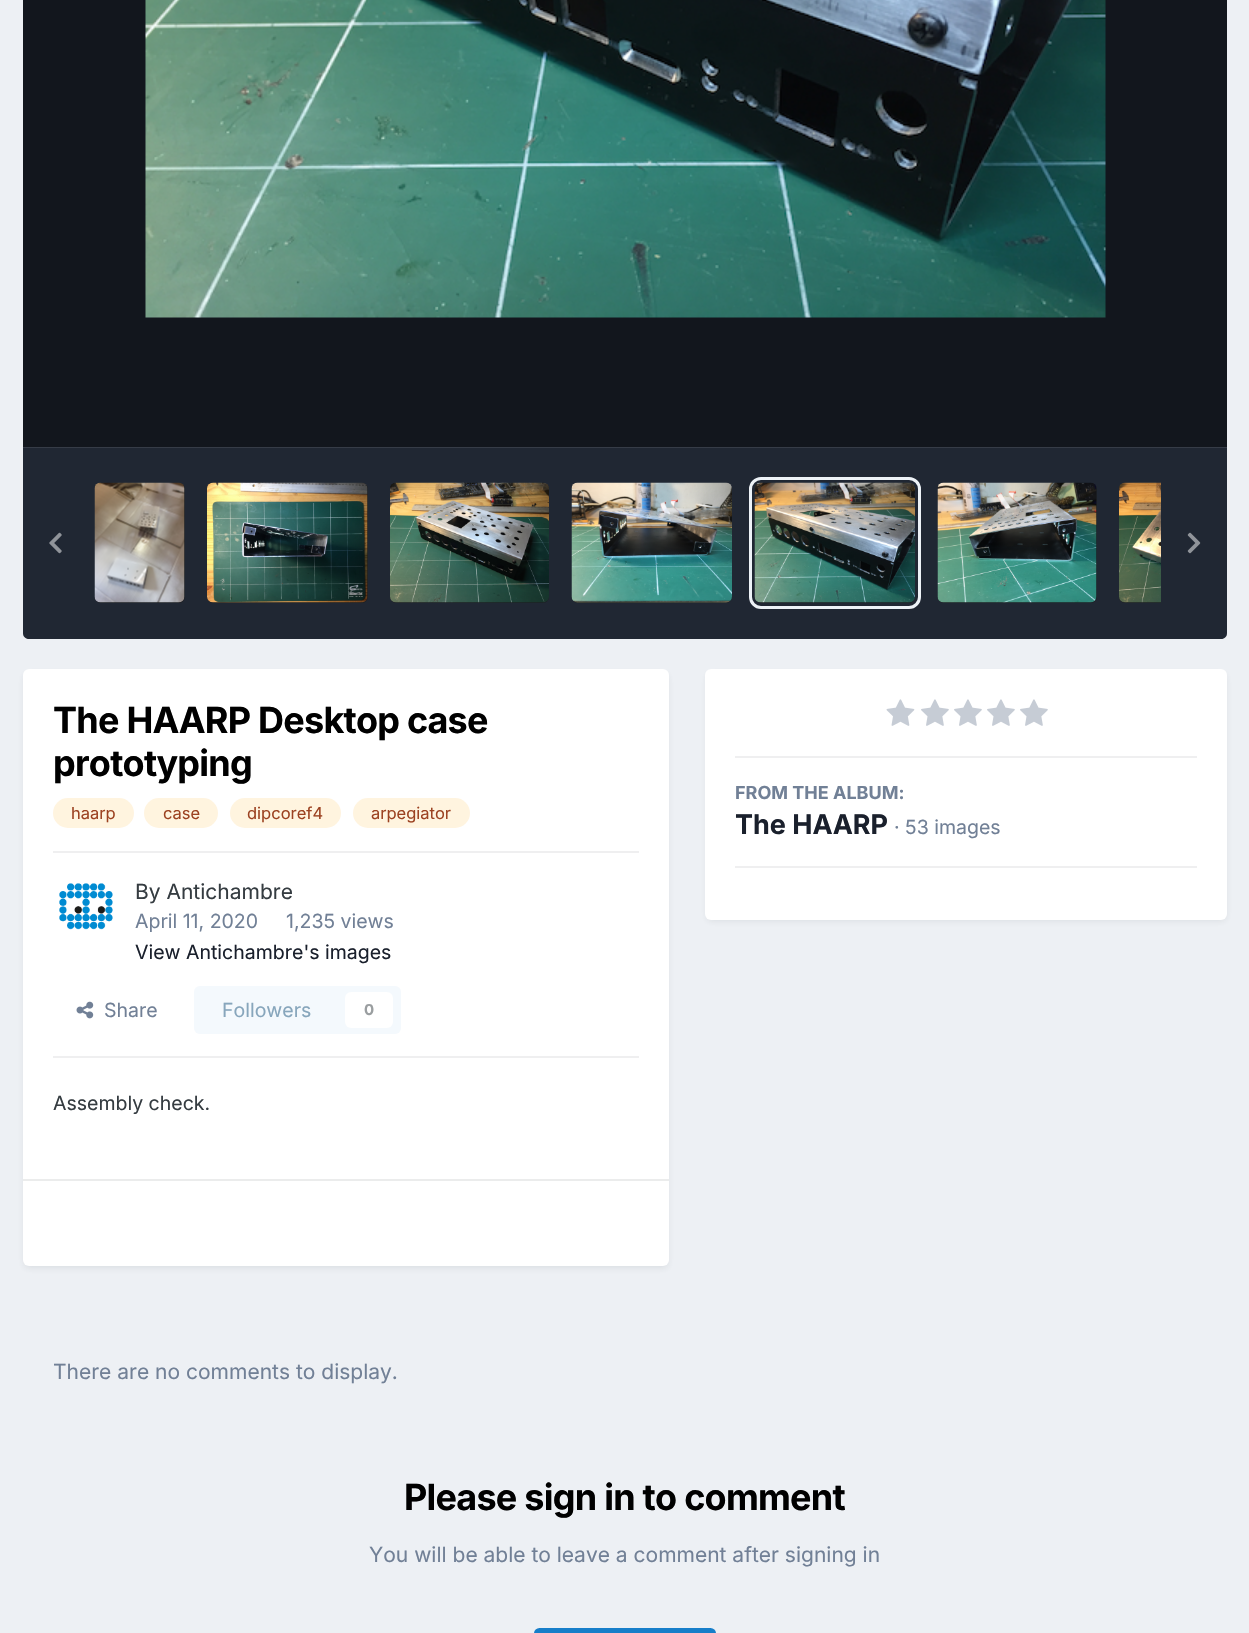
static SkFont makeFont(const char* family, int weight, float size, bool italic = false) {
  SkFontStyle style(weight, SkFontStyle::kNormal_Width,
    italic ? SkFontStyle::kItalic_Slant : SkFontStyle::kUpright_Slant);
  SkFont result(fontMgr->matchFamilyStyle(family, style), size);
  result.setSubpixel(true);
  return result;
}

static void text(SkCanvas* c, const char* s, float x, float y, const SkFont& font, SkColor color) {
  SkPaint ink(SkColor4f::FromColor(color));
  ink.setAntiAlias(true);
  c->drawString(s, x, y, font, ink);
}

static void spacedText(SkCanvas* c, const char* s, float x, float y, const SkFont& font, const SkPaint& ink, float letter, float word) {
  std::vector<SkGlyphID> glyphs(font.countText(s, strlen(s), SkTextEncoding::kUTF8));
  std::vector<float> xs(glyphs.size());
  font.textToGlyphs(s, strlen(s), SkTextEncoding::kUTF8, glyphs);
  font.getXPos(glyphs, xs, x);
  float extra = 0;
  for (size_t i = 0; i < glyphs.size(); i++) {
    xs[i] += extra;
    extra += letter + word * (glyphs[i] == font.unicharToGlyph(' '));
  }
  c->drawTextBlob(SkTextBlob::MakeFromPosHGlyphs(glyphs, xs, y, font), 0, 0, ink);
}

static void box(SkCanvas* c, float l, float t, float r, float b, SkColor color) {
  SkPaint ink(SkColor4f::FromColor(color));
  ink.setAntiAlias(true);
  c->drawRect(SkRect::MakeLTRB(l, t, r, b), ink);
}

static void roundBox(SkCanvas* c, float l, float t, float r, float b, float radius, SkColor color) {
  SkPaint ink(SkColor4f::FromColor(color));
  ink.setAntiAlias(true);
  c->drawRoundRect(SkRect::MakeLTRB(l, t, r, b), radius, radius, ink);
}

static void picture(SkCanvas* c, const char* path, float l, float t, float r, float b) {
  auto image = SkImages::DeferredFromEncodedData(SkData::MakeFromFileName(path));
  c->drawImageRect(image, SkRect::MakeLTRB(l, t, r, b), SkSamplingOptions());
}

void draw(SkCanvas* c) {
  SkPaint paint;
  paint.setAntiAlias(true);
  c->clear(0xffedf0f4);
  box(c, 23, 0, 1227, 447, 0xff12161d);
  picture(c, "img_01.png", 145, 0, 1106, 318);
  paint.setColor(0xff2d3748);
  c->drawPath(SkPathBuilder().moveTo(23, 447).lineTo(1227, 447).lineTo(1227, 633).cubicTo(1227, 636.5f, 1224.5f, 639, 1221, 639).lineTo(29, 639).cubicTo(25.5f, 639, 23, 636.5f, 23, 633).close().detach(), paint);
  paint.setColor(0x4d000000);
  c->drawPath(SkPathBuilder().moveTo(23, 447).lineTo(1227, 447).lineTo(1227, 633).cubicTo(1227, 636.5f, 1224.5f, 639, 1221, 639).lineTo(29, 639).cubicTo(25.5f, 639, 23, 636.5f, 23, 633).close().detach(), paint);
  box(c, 23, 447, 1227, 448, 0xff363c47);
  roundBox(c, 95, 483, 185, 603, 6, 0xff141414);
  roundBox(c, 95, 483, 185, 603, 6, 0x4d2d3748);
  picture(c, "img_02.png", 94, 482, 185, 603);
  roundBox(c, 207, 483, 368, 603, 6, 0xff141414);
  roundBox(c, 207, 483, 368, 603, 6, 0x4d2d3748);
  picture(c, "img_03.png", 207, 482, 368, 603);
  roundBox(c, 390, 483, 549, 603, 6, 0xff141414);
  roundBox(c, 390, 483, 549, 603, 6, 0x4d2d3748);
  picture(c, "img_04.png", 390, 482, 549, 603);
  roundBox(c, 572, 483, 732, 603, 6, 0xff141414);
  roundBox(c, 572, 483, 732, 603, 6, 0x4d2d3748);
  picture(c, "img_05.png", 571, 482, 732, 603);
  roundBox(c, 755, 483, 915, 603, 6, 0xff141414);
  roundBox(c, 755, 483, 915, 603, 6, 0x4d2d3748);
  paint.setStyle(SkPaint::kStroke_Style);
  paint.setStrokeWidth(3);
  paint.setColor(0xffedf2f7);
  c->drawRoundRect(SkRect::MakeLTRB(750.5f, 478.5f, 919.5f, 607.5f), 10.5f, 10.5f, paint);
  picture(c, "img_06.png", 754, 482, 915, 603);
  roundBox(c, 938, 483, 1097, 603, 6, 0xff141414);
  roundBox(c, 938, 483, 1097, 603, 6, 0x4d2d3748);
  picture(c, "img_07.png", 937, 482, 1097, 603);
  paint.setStyle(SkPaint::kFill_Style);
  paint.setColor(0xff141414);
  c->drawPath(SkPathBuilder().moveTo(1125, 483).lineTo(1161, 483).lineTo(1161, 603).lineTo(1125, 603).cubicTo(1121.5f, 603, 1119, 600.5f, 1119, 597).lineTo(1119, 489).cubicTo(1119, 485.5f, 1121.5f, 483, 1125, 483).close().detach(), paint);
  paint.setColor(0x4d2d3748);
  c->drawPath(SkPathBuilder().moveTo(1125, 483).lineTo(1161, 483).lineTo(1161, 603).lineTo(1125, 603).cubicTo(1121.5f, 603, 1119, 600.5f, 1119, 597).lineTo(1119, 489).cubicTo(1119, 485.5f, 1121.5f, 483, 1125, 483).close().detach(), paint);
  picture(c, "img_08.png", 1119, 482, 1161, 603);
  picture(c, "img_09.png", 49, 532, 62, 554);
  picture(c, "img_10.png", 1187, 532, 1201, 554);
  paint.setColor(0x1a2d3748);
  paint.setMaskFilter(SkMaskFilter::MakeBlur(kNormal_SkBlurStyle, 3));
  c->drawRoundRect(SkRect::MakeLTRB(24, 674, 668, 1268), 5, 5, paint);
  paint.setMaskFilter(nullptr);
  roundBox(c, 23, 669, 669, 1266, 6, 0xffffffff);
  SkFont face1 = makeFont("Inter", 700, 36);
  paint.setColor(0xff000000);
  spacedText(c, "The HAARP Desktop case", 53, 733, face1, paint, -0.75f, 0);
  spacedText(c, "prototyping", 53, 776, face1, paint, -0.75f, 0);
  roundBox(c, 53, 798, 134, 828, 15, 0xfffff4df);
  SkFont face2 = makeFont("Inter", 400, 16.5f);
  text(c, "haarp", 71, 819, face2, 0xff9c4221);
  roundBox(c, 144, 798, 218, 828, 15, 0xfffff4df);
  text(c, "case", 163, 819, face2, 0xff9c4221);
  roundBox(c, 230, 798, 341, 828, 15, 0xfffff4df);
  text(c, "dipcoref4", 247, 819, face2, 0xff9c4221);
  roundBox(c, 353, 798, 470, 828, 15, 0xfffff4df);
  text(c, "arpegiator", 371, 819, face2, 0xff9c4221);
  box(c, 53, 851, 639, 853, 0xffefeff0);
  picture(c, "img_11.png", 59, 883, 113, 930);
  SkFont face3 = makeFont("Inter", 400, 21);
  text(c, "By Antichambre", 135, 899, face3, 0xff353c41);
  SkFont face4 = makeFont("Inter", 400, 19.5f);
  text(c, "April 11, 2020", 135, 928, face4, 0xff718096);
  text(c, "1,235 views", 286, 928, face4, 0xff718096);
  text(c, "View Antichambre's images", 135, 959, face4, 0xff1a202c);
  picture(c, "img_12.png", 76, 1001, 94, 1019);
  text(c, "Share", 104, 1017, face4, 0xff718096);
  roundBox(c, 194, 986, 401, 1034, 6, 0xfff4f9fd);
  text(c, "Followers", 222, 1017, face4, 0xff87a6bc);
  roundBox(c, 345, 992, 393, 1028, 6, 0xffffffff);
  SkFont face5 = makeFont("Inter", 700, 15);
  text(c, "0", 364, 1015, face5, 0xff9a9ea0);
  box(c, 53, 1056, 639, 1058, 0xffefeff0);
  text(c, "Assembly check.", 53, 1110, face4, 0xff353c41);
  box(c, 23, 1179, 669, 1181, 0xffebecec);
  paint.setColor(0x1a2d3748);
  paint.setMaskFilter(SkMaskFilter::MakeBlur(kNormal_SkBlurStyle, 3));
  c->drawRoundRect(SkRect::MakeLTRB(707, 674, 1226, 921), 5, 5, paint);
  paint.setMaskFilter(nullptr);
  roundBox(c, 705, 669, 1227, 920, 6, 0xffffffff);
  picture(c, "img_13.png", 886, 699, 915, 726);
  picture(c, "img_14.png", 921, 699, 949, 726);
  picture(c, "img_14.png", 954, 699, 982, 726);
  picture(c, "img_14.png", 987, 699, 1015, 726);
  picture(c, "img_14.png", 1020, 699, 1048, 726);
  box(c, 735, 756, 1197, 758, 0xffefeff0);
  SkFont face6 = makeFont("Inter", 700, 18);
  text(c, "FROM THE ALBUM:", 735, 799, face6, 0xff718096);
  SkFont face7 = makeFont("Inter", 700, 27);
  text(c, "The HAARP", 735, 834, face7, 0xff1a202c);
  text(c, "· 53 images", 894, 834, face4, 0xff718096);
  box(c, 735, 866, 1197, 868, 0xffefeff0);
  text(c, "There are no comments to display.", 53, 1379, face3, 0xff718096);
  paint.setColor(0xff000000);
  spacedText(c, "Please sign in to comment", 404, 1510, face1, paint, -0.75f, 0);
  text(c, "You will be able to leave a comment after signing in", 369, 1562, face3, 0xff718096);
  roundBox(c, 534, 1628, 716, 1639, 6, 0xff177ec9);
}
